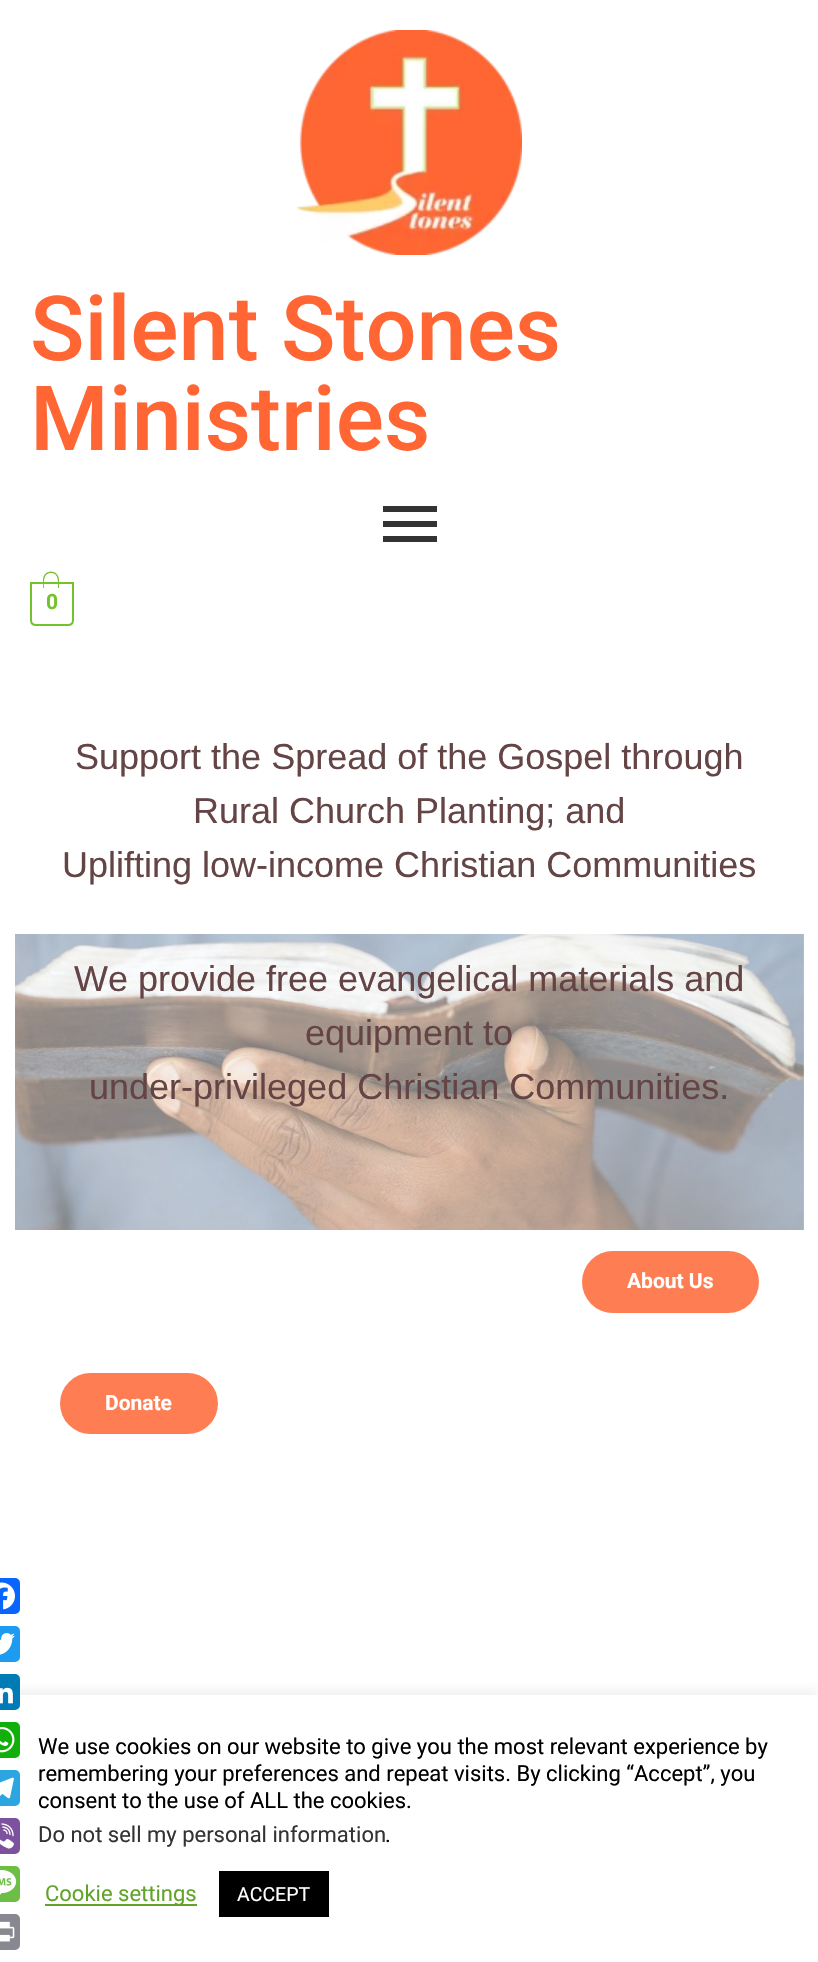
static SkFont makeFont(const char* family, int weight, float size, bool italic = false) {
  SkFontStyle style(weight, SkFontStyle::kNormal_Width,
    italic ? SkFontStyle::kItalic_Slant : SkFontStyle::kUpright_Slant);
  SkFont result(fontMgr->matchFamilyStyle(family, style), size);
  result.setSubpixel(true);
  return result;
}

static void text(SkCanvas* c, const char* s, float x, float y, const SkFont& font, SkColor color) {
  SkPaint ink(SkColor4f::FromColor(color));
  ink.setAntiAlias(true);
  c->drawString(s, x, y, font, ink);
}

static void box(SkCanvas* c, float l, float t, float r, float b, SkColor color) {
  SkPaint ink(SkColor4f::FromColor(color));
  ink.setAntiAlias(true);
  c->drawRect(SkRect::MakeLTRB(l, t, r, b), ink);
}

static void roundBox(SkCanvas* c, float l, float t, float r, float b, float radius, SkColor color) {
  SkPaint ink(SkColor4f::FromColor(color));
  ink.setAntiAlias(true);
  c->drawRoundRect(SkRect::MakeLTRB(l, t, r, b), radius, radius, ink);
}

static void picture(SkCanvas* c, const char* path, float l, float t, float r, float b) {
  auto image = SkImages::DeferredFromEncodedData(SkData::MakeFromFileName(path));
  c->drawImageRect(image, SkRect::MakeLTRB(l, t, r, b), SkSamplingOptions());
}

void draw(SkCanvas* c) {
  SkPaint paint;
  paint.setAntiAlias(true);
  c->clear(0xffffffff);
  picture(c, "img_01.png", 297, 30, 522, 255);
  SkFont face1 = makeFont("Roboto", 500, 90);
  text(c, "Silent Stones", 30, 360, face1, 0xffff6633);
  text(c, "Ministries", 30, 450, face1, 0xffff6633);
  box(c, 383, 506, 437, 512, 0xff333333);
  box(c, 383, 521, 437, 527, 0xff333333);
  box(c, 383, 536, 437, 542, 0xff333333);
  paint.setStyle(SkPaint::kStroke_Style);
  paint.setStrokeWidth(2);
  paint.setColor(0xff75c32c);
  c->drawPath(SkPathBuilder().moveTo(31, 583).lineTo(73, 583).lineTo(73, 620).cubicTo(73, 623, 71, 625, 68, 625).lineTo(36, 625).cubicTo(33, 625, 31, 623, 31, 620).close().detach(), paint);
  paint.setStyle(SkPaint::kFill_Style);
  c->drawPath(SkPathBuilder(SkPathFillType::kEvenOdd).moveTo(51, 571.5f).cubicTo(55.5f, 571.5f, 59, 575, 59, 580).lineTo(59, 588).lineTo(43, 588).lineTo(43, 580).cubicTo(43, 575, 46.5f, 571.5f, 51, 571.5f).close().moveTo(51, 573).cubicTo(59, 573, 58, 582.5f, 58, 588).lineTo(44, 588).cubicTo(44, 582.5f, 43, 573, 51, 573).close().detach(), paint);
  SkFont face2 = makeFont("Roboto", 700, 21);
  text(c, "0", 46, 609, face2, 0xff75c32c);
  SkFont face3 = makeFont("Liberation Sans", 400, 36);
  text(c, "Support the Spread of the Gospel through", 75, 769, face3, 0xff644444);
  text(c, "Rural Church Planting; and", 193, 823, face3, 0xff644444);
  text(c, "Uplifting low-income Christian Communities", 62, 877, face3, 0xff644444);
  picture(c, "img_02.png", 15, 934, 804, 1230);
  text(c, "We provide free evangelical materials and", 74, 991, face3, 0xff644444);
  text(c, "equipment to", 305, 1045, face3, 0xff644444);
  text(c, "under-privileged Christian Communities.", 89, 1099, face3, 0xff644444);
  roundBox(c, 582, 1251, 759, 1313, 31, 0xffff7d52);
  text(c, "About Us", 627, 1288, face2, 0xffffffff);
  roundBox(c, 60, 1373, 218, 1434, 30.5f, 0xffff7d52);
  text(c, "Donate", 105, 1410, face2, 0xffffffff);
  roundBox(c, -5, 1578, 20, 1614, 5, 0xff0866ff);
  picture(c, "img_03.png", 0, 1582, 15, 1610);
  roundBox(c, -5, 1626, 20, 1662, 5, 0xff1d9bf0);
  picture(c, "img_04.png", 0, 1633, 15, 1655);
  c->save();
  c->clipRect(SkRect::MakeLTRB(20, 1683, 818, 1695));
  paint.setColor(0x4dacabab);
  paint.setMaskFilter(SkMaskFilter::MakeBlur(kNormal_SkBlurStyle, 7.5f));
  c->drawRect(SkRect::MakeLTRB(0, 1694, 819, 1961), paint);
  paint.setMaskFilter(nullptr);
  c->restore();
  roundBox(c, -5, 1674, 20, 1710, 5, 0xff007bb5);
  picture(c, "img_05.png", 0, 1687, 13, 1704);
  roundBox(c, -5, 1722, 20, 1758, 5, 0xff12af0a);
  picture(c, "img_06.png", 0, 1727, 15, 1753);
  roundBox(c, -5, 1770, 20, 1806, 5, 0xff2ca5e0);
  picture(c, "img_07.png", 0, 1777, 14, 1799);
  roundBox(c, -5, 1818, 20, 1854, 5, 0xff7c529e);
  picture(c, "img_08.png", 0, 1823, 14, 1849);
  roundBox(c, -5, 1866, 20, 1902, 5, 0xff6cbe45);
  picture(c, "img_09.png", 0, 1870, 17, 1895);
  roundBox(c, -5, 1914, 20, 1950, 5, 0xff888990);
  picture(c, "img_10.png", 0, 1921, 15, 1942);
  SkFont face4 = makeFont("Roboto", 400, 22);
  text(c, "We use cookies on our website to give you the most relevant experience by", 38, 1754, face4, 0xff000000);
  text(c, "remembering your preferences and repeat visits. By clicking “Accept”, you", 38, 1781, face4, 0xff000000);
  text(c, "consent to the use of ALL the cookies.", 38, 1808, face4, 0xff000000);
  text(c, "Do not sell my personal information", 38, 1842, face4, 0xff333333);
  text(c, ".", 385, 1842, face4, 0xff000000);
  box(c, 45, 1904, 197, 1906, 0xff62a329);
  text(c, "Cookie settings", 45, 1901, face4, 0xff62a329);
  box(c, 219, 1871, 329, 1917, 0xff000000);
  SkFont face5 = makeFont("Roboto", 400, 19.5f);
  text(c, "ACCEPT", 237, 1901, face5, 0xffffffff);
}
